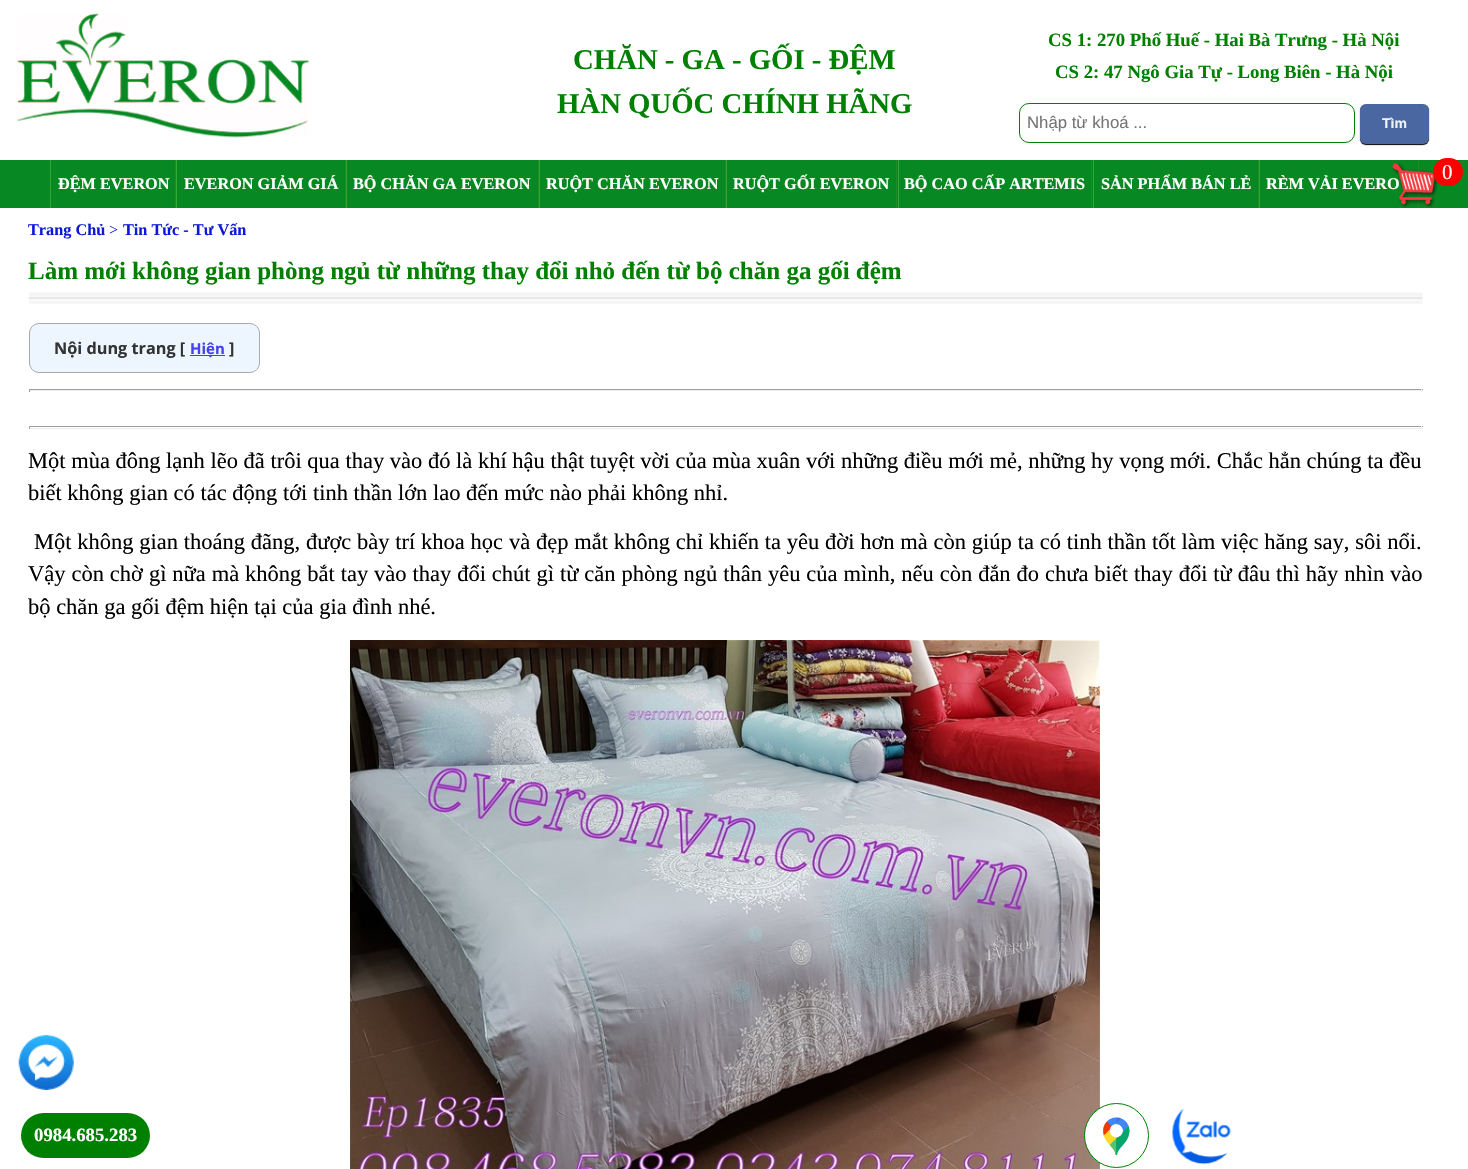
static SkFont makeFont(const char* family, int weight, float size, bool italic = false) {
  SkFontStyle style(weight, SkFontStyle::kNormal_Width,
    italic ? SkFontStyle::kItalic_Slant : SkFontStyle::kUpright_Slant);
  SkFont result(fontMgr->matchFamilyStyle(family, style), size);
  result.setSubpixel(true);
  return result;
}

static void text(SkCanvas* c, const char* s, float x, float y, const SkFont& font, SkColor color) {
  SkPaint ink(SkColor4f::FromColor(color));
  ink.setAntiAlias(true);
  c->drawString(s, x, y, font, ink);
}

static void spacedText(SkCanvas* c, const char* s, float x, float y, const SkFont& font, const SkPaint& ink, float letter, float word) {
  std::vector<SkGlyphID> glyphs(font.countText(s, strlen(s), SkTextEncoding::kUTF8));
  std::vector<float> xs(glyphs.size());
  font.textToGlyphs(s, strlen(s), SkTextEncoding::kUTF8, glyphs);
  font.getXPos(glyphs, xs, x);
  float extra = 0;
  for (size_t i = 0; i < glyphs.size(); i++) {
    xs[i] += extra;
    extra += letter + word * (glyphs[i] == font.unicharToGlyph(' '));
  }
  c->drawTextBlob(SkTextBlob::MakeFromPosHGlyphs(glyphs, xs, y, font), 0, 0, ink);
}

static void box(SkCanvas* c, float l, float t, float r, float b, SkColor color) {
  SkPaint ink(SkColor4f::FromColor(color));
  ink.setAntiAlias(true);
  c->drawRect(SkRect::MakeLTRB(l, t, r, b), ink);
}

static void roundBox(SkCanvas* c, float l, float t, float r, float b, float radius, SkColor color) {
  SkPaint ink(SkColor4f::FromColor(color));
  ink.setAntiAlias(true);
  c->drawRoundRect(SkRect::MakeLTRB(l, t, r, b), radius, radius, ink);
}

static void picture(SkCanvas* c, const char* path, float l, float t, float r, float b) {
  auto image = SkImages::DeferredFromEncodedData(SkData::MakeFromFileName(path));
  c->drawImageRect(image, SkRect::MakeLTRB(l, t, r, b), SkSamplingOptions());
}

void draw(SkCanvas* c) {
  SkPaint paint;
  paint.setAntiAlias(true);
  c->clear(0xffffffff);
  picture(c, "img_01.png", 16, 13, 310, 138);
  SkFont face1 = makeFont("Liberation Serif", 700, 28.75f);
  text(c, "CHĂN - GA - GỐI - ĐỆM", 573, 69, face1, 0xff008000);
  text(c, "HÀN QUỐC CHÍNH HÃNG", 557, 113, face1, 0xff008000);
  SkFont face2 = makeFont("Liberation Serif", 700, 18.75f);
  text(c, "CS 1: 270 Phố Huế - Hai Bà Trưng - Hà Nội", 1048, 46, face2, 0xff008000);
  text(c, "CS 2: 47 Ngô Gia Tự - Long Biên - Hà Nội", 1055, 78, face2, 0xff008000);
  paint.setStyle(SkPaint::kStroke_Style);
  paint.setStrokeWidth(1);
  paint.setColor(0xff008000);
  c->drawRoundRect(SkRect::MakeLTRB(1019.5f, 103.5f, 1354.5f, 142.5f), 9.5f, 9.5f, paint);
  SkFont face3 = makeFont("Liberation Sans", 400, 16.75f);
  text(c, "Nhập từ khoá ...", 1027, 128, face3, 0xff757575);
  paint.setStyle(SkPaint::kFill_Style);
  paint.setColor(0xff000000);
  paint.setMaskFilter(SkMaskFilter::MakeBlur(kNormal_SkBlurStyle, 0.5f));
  c->drawRoundRect(SkRect::MakeLTRB(1360, 105, 1429, 145), 6, 6, paint);
  paint.setMaskFilter(nullptr);
  roundBox(c, 1360, 104, 1429, 144, 6, 0xff4b67a1);
  SkFont face4 = makeFont("Liberation Sans", 700, 14);
  text(c, "Tìm", 1382, 128, face4, 0xffeaf5f7);
  box(c, 0, 160, 1468, 208, 0xff088823);
  box(c, 1418, 160, 1419, 208, 0xff268727);
  SkFont face5 = makeFont("Liberation Serif", 700, 16.25f);
  text(c, "RÈM VẢI EVERO", 1266, 189, face5, 0xffffffff);
  picture(c, "img_02.png", 1391, 162, 1439, 208);
  roundBox(c, 1433, 158, 1463, 186, 14, 0xffff0000);
  SkFont face6 = makeFont("Liberation Serif", 400, 21);
  text(c, "0", 1442, 179, face6, 0xffffffff);
  box(c, 175, 160, 176, 208, 0xff268727);
  box(c, 50, 160, 51, 208, 0xff31a830);
  text(c, "ĐỆM EVERON", 58, 189, face5, 0xffffffff);
  box(c, 345, 160, 346, 208, 0xff268727);
  box(c, 176, 160, 177, 208, 0xff31a830);
  text(c, "EVERON GIẢM GIÁ", 184, 189, face5, 0xffffffff);
  box(c, 538, 160, 539, 208, 0xff268727);
  box(c, 346, 160, 347, 208, 0xff31a830);
  text(c, "BỘ CHĂN GA EVERON", 353, 189, face5, 0xffffffff);
  box(c, 725, 160, 726, 208, 0xff268727);
  box(c, 539, 160, 540, 208, 0xff31a830);
  text(c, "RUỘT CHĂN EVERON", 546, 189, face5, 0xffffffff);
  box(c, 896, 160, 897, 208, 0xff268727);
  box(c, 726, 160, 727, 208, 0xff31a830);
  text(c, "RUỘT GỐI EVERON", 733, 189, face5, 0xffffffff);
  box(c, 1091, 160, 1092, 208, 0xff268727);
  box(c, 898, 160, 899, 208, 0xff31a830);
  text(c, "BỘ CAO CẤP ARTEMIS", 904, 189, face5, 0xffffffff);
  box(c, 1258, 160, 1259, 208, 0xff268727);
  box(c, 1093, 160, 1094, 208, 0xff31a830);
  text(c, "SẢN PHẨM BÁN LẺ", 1101, 189, face5, 0xffffffff);
  box(c, 1259, 160, 1260, 208, 0xff31a830);
  text(c, "Trang Chủ", 28, 235, face5, 0xff0e19d6);
  SkFont face7 = makeFont("Liberation Serif", 400, 16.25f);
  text(c, ">", 109, 235, face7, 0xff0e19d6);
  text(c, "Tin Tức - Tư Vấn", 123, 235, face5, 0xff0e19d6);
  picture(c, "img_03.png", 28, 292, 1423, 304);
  SkFont face8 = makeFont("Liberation Serif", 700, 25);
  text(c, "Làm mới không gian phòng ngủ từ những thay đổi nhỏ đến từ bộ chăn ga gối đệm", 28, 279, face8, 0xff008000);
  paint.setColor(0xffedf6ff);
  c->drawRoundRect(SkRect::MakeLTRB(29.5f, 323.5f, 259.5f, 372.5f), 9.5f, 9.5f, paint);
  paint.setStyle(SkPaint::kStroke_Style);
  paint.setColor(0xffaaaaaa);
  c->drawRoundRect(SkRect::MakeLTRB(29.5f, 323.5f, 259.5f, 372.5f), 9.5f, 9.5f, paint);
  SkFont face9 = makeFont("Open Sans", 700, 16.25f);
  text(c, "Nội dung trang [", 54, 354, face9, 0xff333333);
  box(c, 190, 355, 225, 356, 0xff4540f2);
  SkFont face10 = makeFont("Open Sans", 700, 15);
  text(c, "Hiện", 190, 354, face10, 0xff4540f2);
  text(c, "]", 229, 354, face9, 0xff333333);
  box(c, 29, 389, 1423, 390, 0xff9f9f9f);
  box(c, 1421, 389, 1422, 392, 0xffeeeeee);
  box(c, 29, 390, 1423, 391, 0xffeeeeee);
  box(c, 29, 389, 30, 392, 0xff9f9f9f);
  box(c, 29, 426, 1423, 427, 0xff9f9f9f);
  box(c, 1421, 426, 1422, 429, 0xffeeeeee);
  box(c, 29, 428, 1423, 429, 0xffeeeeee);
  box(c, 29, 426, 30, 429, 0xff9f9f9f);
  SkFont face11 = makeFont("Liberation Serif", 400, 22.5f);
  text(c, "Một mùa đông lạnh lẽo đã trôi qua thay vào đó là khí hậu thật tuyệt vời của mùa xuân với những điều mới mẻ, những hy vọng mới. Chắc hẳn chúng ta đều", 28, 468, face11, 0xff000000);
  text(c, "biết không gian có tác động tới tinh thần lớn lao đến mức nào phải không nhỉ.", 28, 500, face11, 0xff000000);
  paint.setStyle(SkPaint::kFill_Style);
  paint.setColor(0xff000000);
  spacedText(c, "Một không gian thoáng đãng, được bày trí khoa học và đẹp mắt không chỉ khiến ta yêu đời hơn mà còn giúp ta có tinh thần tốt làm việc hăng say, sôi nổi.", 34, 549, face11, paint, 0, 0.15f);
  spacedText(c, "Vậy còn chờ gì nữa mà không bắt tay vào thay đổi chút gì từ căn phòng ngủ thân yêu của mình, nếu còn đắn đo chưa biết thay đổi từ đâu thì hãy nhìn vào", 28, 581, face11, paint, 0, 0.3f);
  text(c, "bộ chăn ga gối đệm hiện tại của gia đình nhé.", 28, 614, face11, 0xff000000);
  picture(c, "img_04.png", 350, 640, 1100, 1169);
  picture(c, "img_05.png", 18, 1034, 74, 1090);
  roundBox(c, 21, 1113, 150, 1158, 22.5f, 0xff008000);
  text(c, "0984.685.283", 34, 1141, face2, 0xffffffff);
  paint.setColor(0xffffffff);
  c->drawCircle(1116.5f, 1135.5f, 32, paint);
  paint.setStyle(SkPaint::kStroke_Style);
  paint.setColor(0xff008000);
  c->drawCircle(1116.5f, 1135.5f, 32, paint);
  picture(c, "img_06.png", 1103, 1117, 1130, 1155);
  picture(c, "img_07.png", 1172, 1108, 1231, 1165);
}
